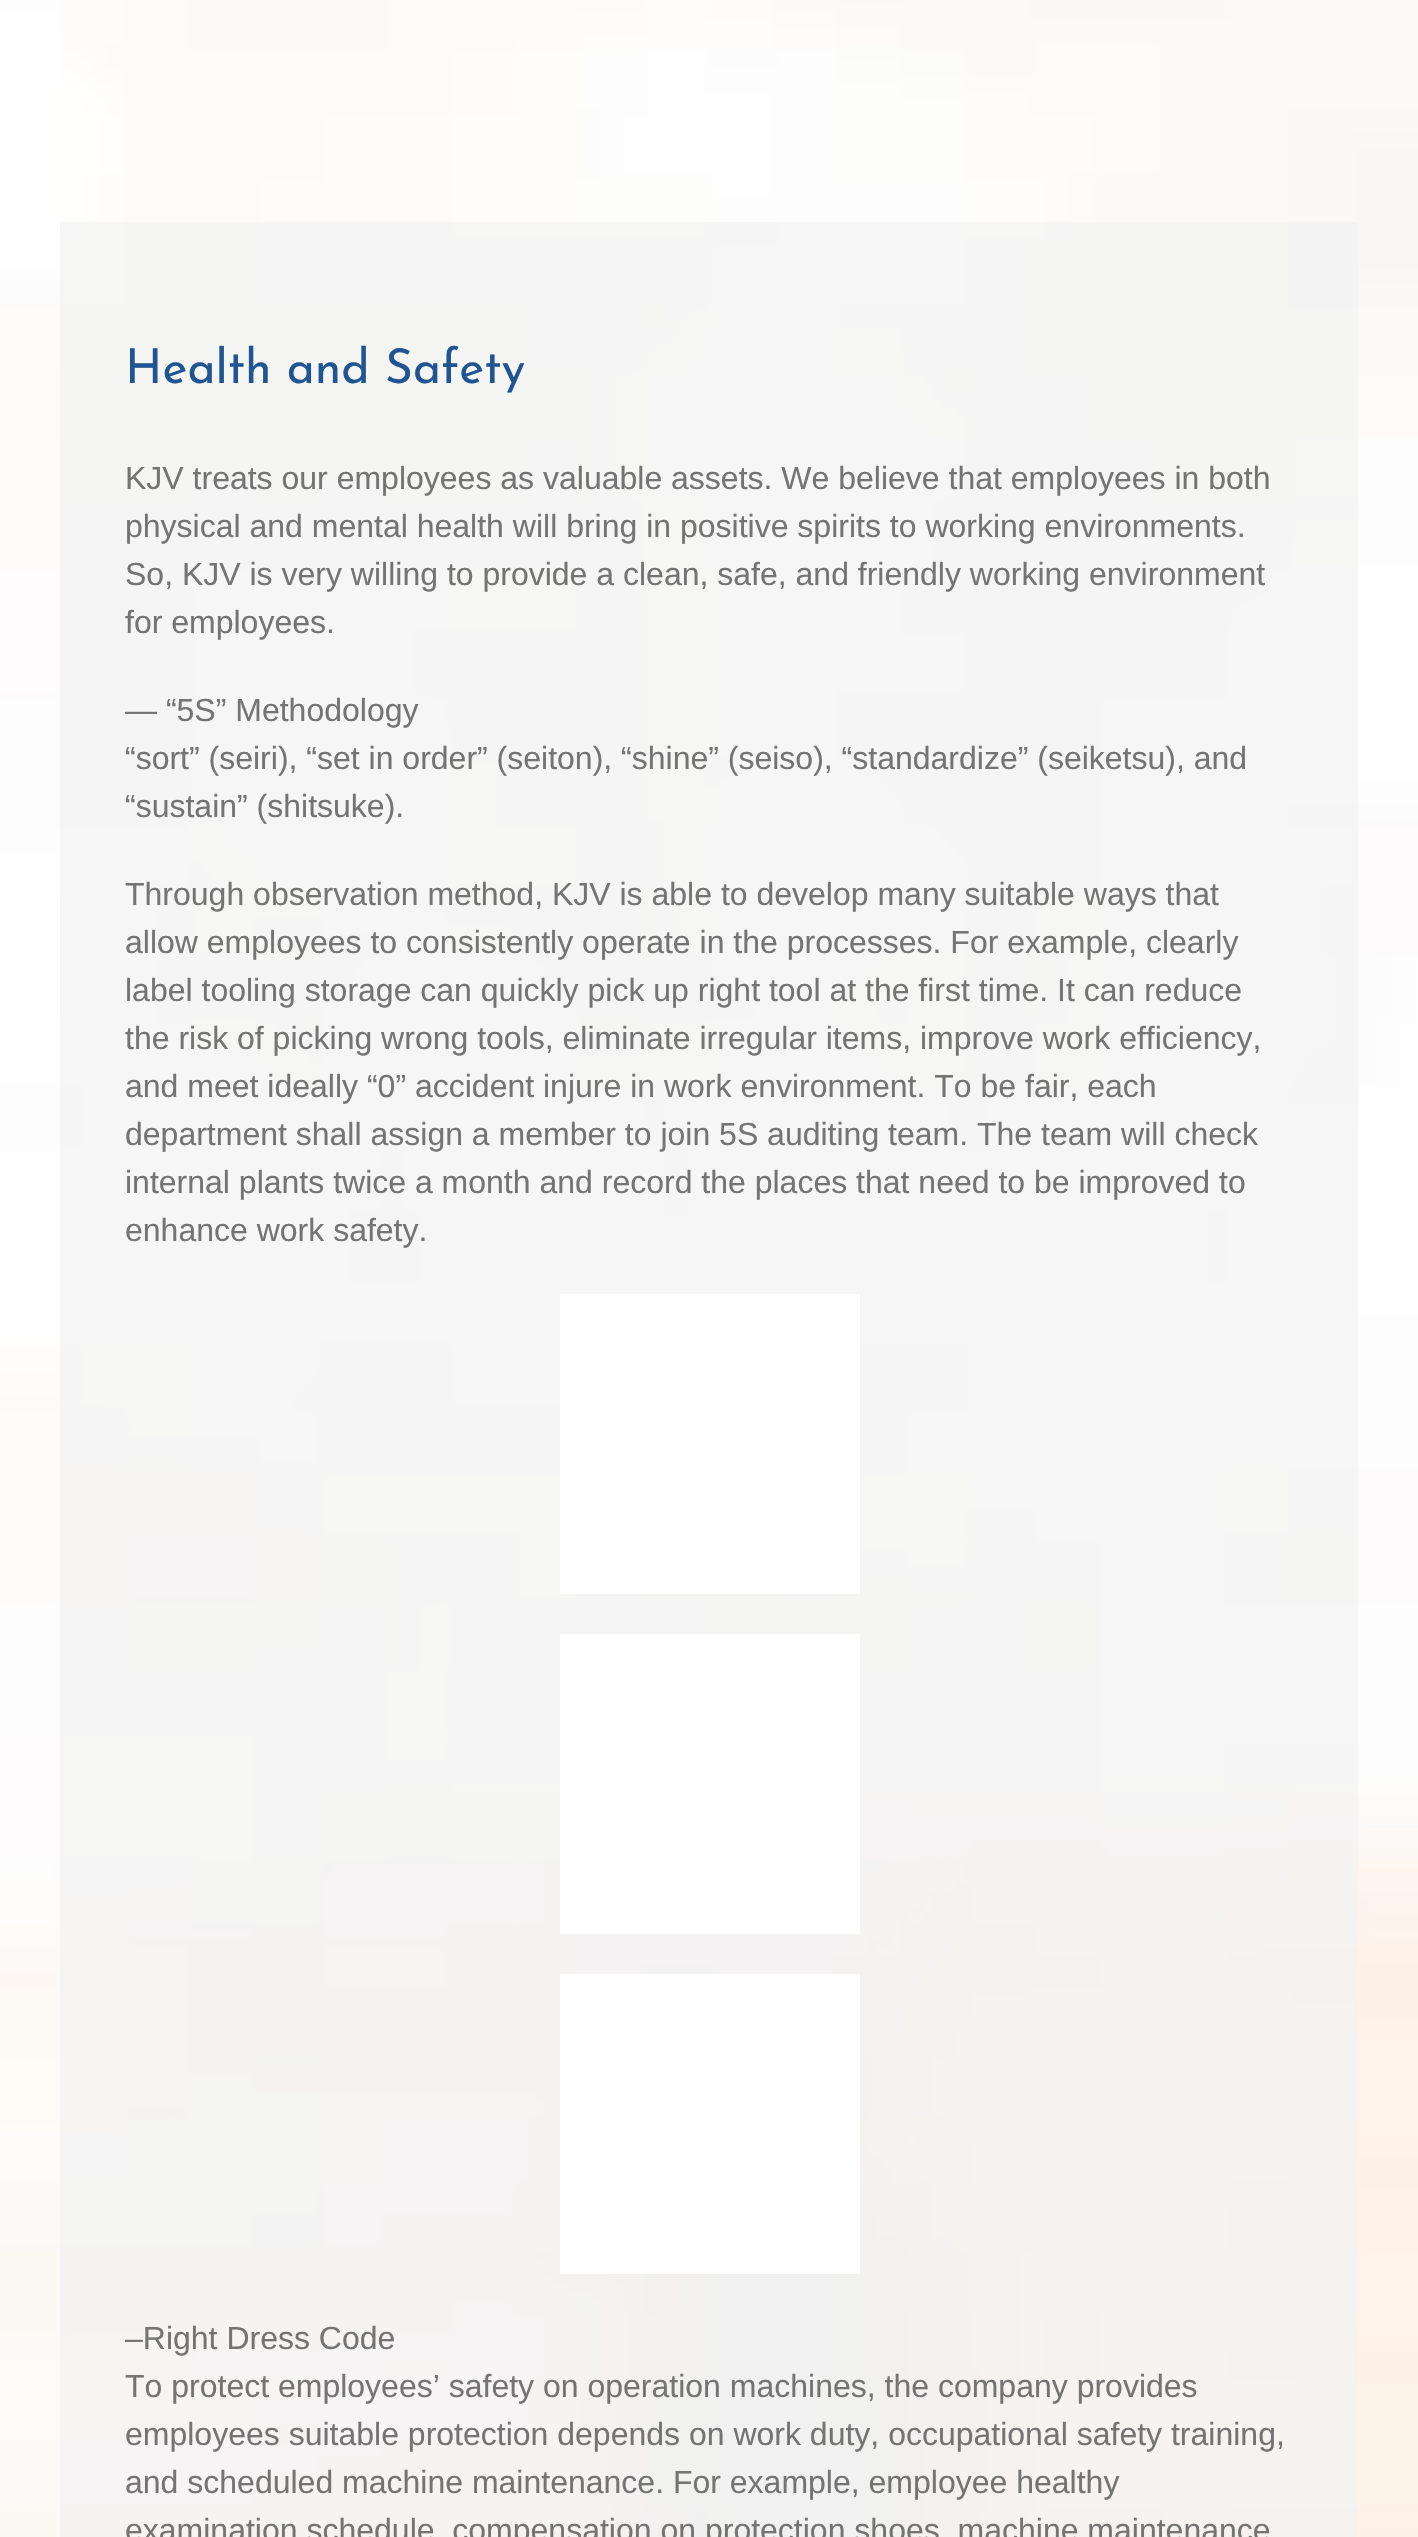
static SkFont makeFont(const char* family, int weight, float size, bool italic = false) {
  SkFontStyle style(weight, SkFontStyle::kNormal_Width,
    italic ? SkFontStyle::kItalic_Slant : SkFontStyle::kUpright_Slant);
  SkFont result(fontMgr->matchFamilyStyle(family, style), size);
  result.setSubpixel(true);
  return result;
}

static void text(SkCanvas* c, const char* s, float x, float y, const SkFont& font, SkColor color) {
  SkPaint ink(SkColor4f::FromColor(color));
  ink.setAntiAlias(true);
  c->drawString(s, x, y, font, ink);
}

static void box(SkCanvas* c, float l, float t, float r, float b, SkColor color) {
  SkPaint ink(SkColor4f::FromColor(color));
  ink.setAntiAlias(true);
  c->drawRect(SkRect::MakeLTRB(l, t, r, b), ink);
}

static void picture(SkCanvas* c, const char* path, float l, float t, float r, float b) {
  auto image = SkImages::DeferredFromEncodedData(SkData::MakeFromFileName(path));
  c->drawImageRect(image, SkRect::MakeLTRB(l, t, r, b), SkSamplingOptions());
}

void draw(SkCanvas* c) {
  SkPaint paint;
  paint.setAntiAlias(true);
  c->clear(0xffffffff);
  picture(c, "img_01.png", 0, 0, 1418, 2537);
  box(c, 60, 222, 1358, 2537, 0xb3f2f2f2);
  SkFont face1 = makeFont("Josefin Sans", 100, 48);
  text(c, "Health and Safety", 125, 383, face1, 0xff205592);
  SkFont face2 = makeFont("Liberation Sans", 400, 32);
  text(c, "KJV treats our employees as valuable assets. We believe that employees in both", 125, 489, face2, 0xff747474);
  text(c, "physical and mental health will bring in positive spirits to working environments.", 125, 537, face2, 0xff747474);
  text(c, "So, KJV is very willing to provide a clean, safe, and friendly working environment", 125, 585, face2, 0xff747474);
  text(c, "for employees.", 125, 633, face2, 0xff747474);
  text(c, "— “5S” Methodology", 125, 721, face2, 0xff747474);
  text(c, "“sort” (seiri), “set in order” (seiton), “shine” (seiso), “standardize” (seiketsu), and", 125, 769, face2, 0xff747474);
  text(c, "“sustain” (shitsuke).", 125, 817, face2, 0xff747474);
  text(c, "Through observation method, KJV is able to develop many suitable ways that", 125, 905, face2, 0xff747474);
  text(c, "allow employees to consistently operate in the processes. For example, clearly", 125, 953, face2, 0xff747474);
  text(c, "label tooling storage can quickly pick up right tool at the first time. It can reduce", 125, 1001, face2, 0xff747474);
  text(c, "the risk of picking wrong tools, eliminate irregular items, improve work efficiency,", 125, 1049, face2, 0xff747474);
  text(c, "and meet ideally “0” accident injure in work environment. To be fair, each", 125, 1097, face2, 0xff747474);
  text(c, "department shall assign a member to join 5S auditing team. The team will check", 125, 1145, face2, 0xff747474);
  text(c, "internal plants twice a month and record the places that need to be improved to", 125, 1193, face2, 0xff747474);
  text(c, "enhance work safety.", 125, 1241, face2, 0xff747474);
  box(c, 560, 1294, 860, 1594, 0xffffffff);
  box(c, 560, 1634, 860, 1934, 0xffffffff);
  box(c, 560, 1974, 860, 2274, 0xffffffff);
  text(c, "–Right Dress Code", 125, 2349, face2, 0xff747474);
  text(c, "To protect employees’ safety on operation machines, the company provides", 125, 2397, face2, 0xff747474);
  text(c, "employees suitable protection depends on work duty, occupational safety training,", 125, 2445, face2, 0xff747474);
  text(c, "and scheduled machine maintenance. For example, employee healthy", 125, 2493, face2, 0xff747474);
  text(c, "examination schedule, compensation on protection shoes, machine maintenance", 125, 2541, face2, 0xff747474);
}
